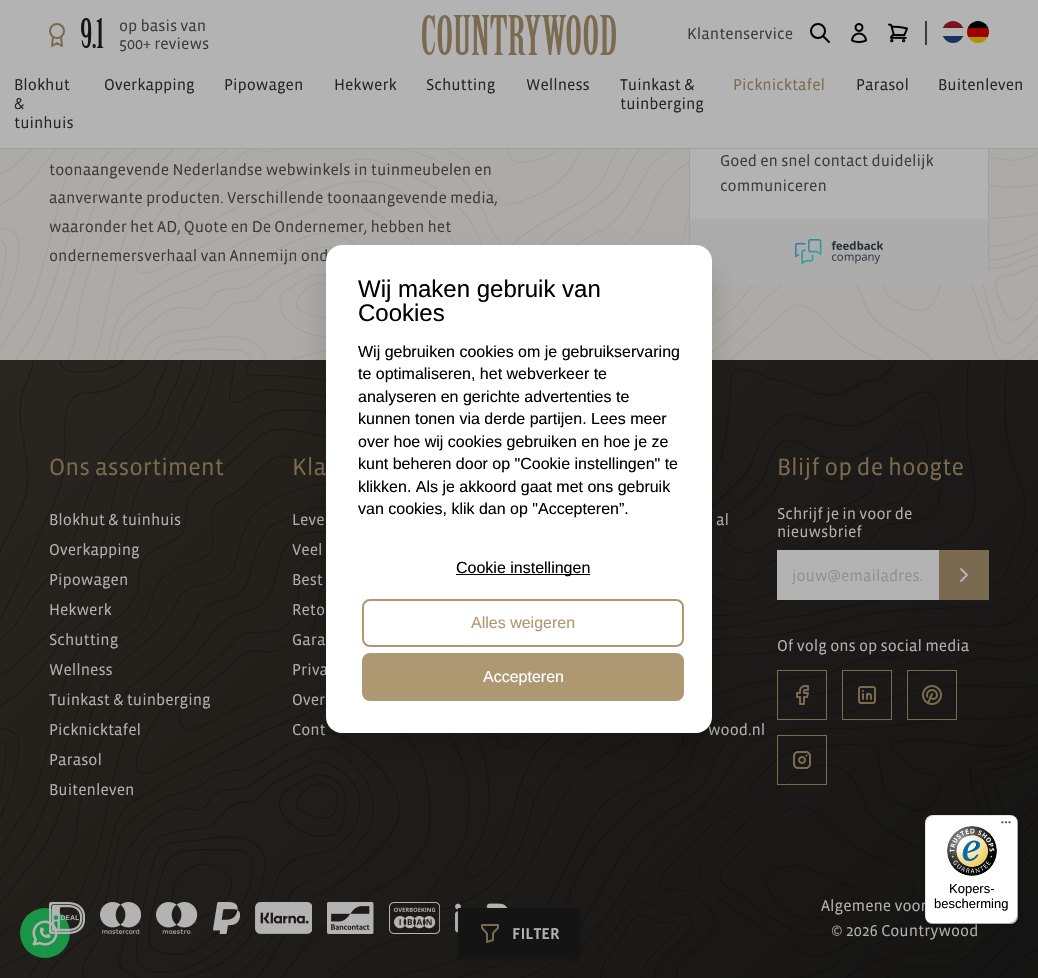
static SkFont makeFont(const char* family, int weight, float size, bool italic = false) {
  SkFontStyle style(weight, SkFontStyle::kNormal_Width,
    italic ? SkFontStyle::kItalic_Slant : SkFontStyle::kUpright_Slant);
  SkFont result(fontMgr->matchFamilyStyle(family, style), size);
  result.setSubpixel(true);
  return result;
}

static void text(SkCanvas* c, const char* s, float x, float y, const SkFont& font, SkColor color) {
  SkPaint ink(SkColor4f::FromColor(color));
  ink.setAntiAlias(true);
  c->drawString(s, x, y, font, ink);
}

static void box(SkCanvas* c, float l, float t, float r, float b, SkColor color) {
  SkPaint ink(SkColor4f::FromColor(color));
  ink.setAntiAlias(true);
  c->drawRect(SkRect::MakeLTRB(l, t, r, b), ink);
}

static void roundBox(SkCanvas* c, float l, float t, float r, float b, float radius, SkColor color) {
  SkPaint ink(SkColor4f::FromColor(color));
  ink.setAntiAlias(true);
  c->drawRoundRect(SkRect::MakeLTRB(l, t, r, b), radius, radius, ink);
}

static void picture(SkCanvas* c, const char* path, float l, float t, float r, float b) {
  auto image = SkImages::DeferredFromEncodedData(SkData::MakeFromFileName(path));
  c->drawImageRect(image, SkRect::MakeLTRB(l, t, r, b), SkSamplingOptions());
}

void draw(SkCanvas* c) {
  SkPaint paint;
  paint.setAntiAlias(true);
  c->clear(0xffffffff);
  box(c, 0, 149, 1038, 360, 0xffacaba8);
  picture(c, "img_04.png", 0, 149, 1038, 360);
  box(c, 690, 149, 988, 219, 0xffb3b3b3);
  paint.setStyle(SkPaint::kStroke_Style);
  paint.setStrokeWidth(1);
  paint.setColor(0xffa0a0a0);
  c->drawRect(SkRect::MakeLTRB(689.5f, -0.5f, 988.5f, 269.5f), paint);
  box(c, 0, 0, 1038, 148, 0xffb3b3b3);
  box(c, 0, 148, 1038, 149, 0xffa0a0a0);
  paint.setStrokeWidth(2);
  paint.setColor(0xff7a6a4f);
  c->drawCircle(57, 31, 7, paint);
  paint.setStrokeCap(SkPaint::kRound_Cap);
  paint.setStrokeJoin(SkPaint::kRound_Join);
  c->drawPath(SkPathBuilder().moveTo(53, 37).lineTo(52, 46).lineTo(57, 43).lineTo(62, 46).lineTo(61, 37).detach(), paint);
  SkFont face1 = makeFont("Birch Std", 400, 40);
  text(c, "9.1", 80, 48, face1, 0xff141414);
  SkFont face2 = makeFont("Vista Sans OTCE", 400, 16);
  text(c, "op basis van", 119, 31, face2, 0xff3b3b3b);
  text(c, "500+ reviews", 119, 49, face2, 0xff3b3b3b);
  picture(c, "img_01.png", 422, 15, 616, 55);
  text(c, "Klantenservice", 687, 39, face2, 0xff3b3b3b);
  paint.setStrokeCap(SkPaint::kButt_Cap);
  paint.setStrokeJoin(SkPaint::kMiter_Join);
  paint.setColor(0xff000000);
  c->drawCircle(818, 31, 7, paint);
  paint.setStrokeCap(SkPaint::kRound_Cap);
  paint.setStrokeJoin(SkPaint::kRound_Join);
  c->drawPath(SkPathBuilder().moveTo(829, 42).lineTo(823, 36).detach(), paint);
  picture(c, "img_02.png", 851, 23, 867, 43);
  picture(c, "img_03.png", 888, 23, 908, 43);
  box(c, 925, 21, 927, 45, 0xff3b3b3b);
  c->save();
  c->clipPath(SkPathBuilder().moveTo(953, 21).cubicTo(959, 21, 964, 26, 964, 32).cubicTo(964, 38, 959, 43, 953, 43).cubicTo(947, 43, 942, 38, 942, 32).cubicTo(942, 26, 947, 21, 953, 21).close().detach(), true);
  box(c, 942, 36, 964, 43, 0xff173161);
  box(c, 942, 21, 964, 28, 0xff7a141c);
  c->restore();
  c->save();
  c->clipPath(SkPathBuilder().moveTo(978, 21).cubicTo(984, 21, 989, 26, 989, 32).cubicTo(989, 38, 984, 43, 978, 43).cubicTo(972, 43, 967, 38, 967, 32).cubicTo(967, 26, 972, 21, 978, 21).close().detach(), true);
  box(c, 967, 37, 989, 43, 0xffb39000);
  box(c, 967, 21, 989, 28, 0xff000000);
  box(c, 967, 28, 989, 37, 0xff9b0000);
  c->restore();
  text(c, "Blokhut", 14, 90, face2, 0xff242424);
  text(c, "&", 14, 109, face2, 0xff242424);
  text(c, "tuinhuis", 14, 128, face2, 0xff242424);
  text(c, "Overkapping", 104, 90, face2, 0xff242424);
  text(c, "Pipowagen", 224, 90, face2, 0xff242424);
  text(c, "Hekwerk", 334, 90, face2, 0xff242424);
  text(c, "Schutting", 426, 90, face2, 0xff242424);
  text(c, "Wellness", 526, 90, face2, 0xff242424);
  text(c, "Tuinkast &", 620, 90, face2, 0xff242424);
  text(c, "tuinberging", 620, 109, face2, 0xff242424);
  text(c, "Picknicktafel", 733, 90, face2, 0xff7a6a4f);
  text(c, "Parasol", 856, 90, face2, 0xff242424);
  text(c, "Buitenleven", 938, 90, face2, 0xff242424);
  text(c, "toonaangevende Nederlandse webwinkels in tuinmeubelen en", 49, 175, face2, 0xff3b3b3b);
  text(c, "aanverwante producten. Verschillende toonaangevende media,", 49, 203, face2, 0xff3b3b3b);
  text(c, "waaronder het AD, Quote en De Ondernemer, hebben het", 49, 232, face2, 0xff3b3b3b);
  text(c, "ondernemersverhaal van Annemijn ond", 49, 261, face2, 0xff3b3b3b);
  text(c, "Goed en snel contact duidelijk", 720, 166, face2, 0xff3b3b3b);
  text(c, "communiceren", 720, 191, face2, 0xff3b3b3b);
  box(c, 690, 219, 988, 284, 0xffacacac);
  picture(c, "img_05.png", 795, 239, 883, 264);
  paint.setStyle(SkPaint::kFill_Style);
  {
    const SkColor colors[] = {0xff29251f, 0xff141414};
    const float stops[] = {0, 1};
    const SkPoint ends[] = {{92, 269}, {947, 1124}};
    paint.setShader(SkGradientShader::MakeLinear(ends, colors, stops, 2, SkTileMode::kClamp));
    paint.setAlpha(255);
  }
  c->drawRect(SkRect::MakeLTRB(0, 360, 1038, 978), paint);
  picture(c, "img_06.png", 0, 360, 1038, 978);
  SkFont face3 = makeFont("Vista Sans OTCE", 400, 24);
  text(c, "Ons assortiment", 49, 475, face3, 0xff7a6a4f);
  text(c, "Blokhut & tuinhuis", 49, 525, face2, 0xffb3b3b3);
  text(c, "Overkapping", 49, 555, face2, 0xffb3b3b3);
  text(c, "Pipowagen", 49, 585, face2, 0xffb3b3b3);
  text(c, "Hekwerk", 49, 615, face2, 0xffb3b3b3);
  text(c, "Schutting", 49, 645, face2, 0xffb3b3b3);
  text(c, "Wellness", 49, 675, face2, 0xffb3b3b3);
  text(c, "Tuinkast & tuinberging", 49, 705, face2, 0xffb3b3b3);
  text(c, "Picknicktafel", 49, 735, face2, 0xffb3b3b3);
  text(c, "Parasol", 49, 765, face2, 0xffb3b3b3);
  text(c, "Buitenleven", 49, 795, face2, 0xffb3b3b3);
  text(c, "Kla", 292, 475, face3, 0xff7a6a4f);
  text(c, "Leve", 292, 525, face2, 0xffb3b3b3);
  text(c, "Veel", 292, 555, face2, 0xffb3b3b3);
  text(c, "Best", 292, 585, face2, 0xffb3b3b3);
  text(c, "Reto", 292, 615, face2, 0xffb3b3b3);
  text(c, "Gara", 292, 645, face2, 0xffb3b3b3);
  text(c, "Priva", 292, 675, face2, 0xffb3b3b3);
  text(c, "Over", 292, 705, face2, 0xffb3b3b3);
  text(c, "Cont", 292, 735, face2, 0xffb3b3b3);
  text(c, "al", 716, 525, face2, 0xffb3b3b3);
  text(c, "wood.nl", 708, 735, face2, 0xffb3b3b3);
  text(c, "Blijf op de hoogte", 777, 475, face3, 0xff7a6a4f);
  text(c, "Schrijf je in voor de", 777, 519, face2, 0xffb3b3b3);
  text(c, "nieuwsbrief", 777, 537, face2, 0xffb3b3b3);
  box(c, 777, 550, 939, 600, 0xffb3b3b3);
  c->save();
  c->clipRect(SkRect::MakeLTRB(792, 566, 924, 584));
  text(c, "jouw@emailadres.", 792, 581, face2, 0xff8f8f8f);
  c->restore();
  box(c, 939, 550, 989, 600, 0xff7a6a4f);
  paint.setStyle(SkPaint::kStroke_Style);
  paint.setShader(nullptr);
  paint.setColor(0xffb3b3b3);
  c->drawPath(SkPathBuilder().moveTo(961, 569).lineTo(967, 575).lineTo(961, 581).detach(), paint);
  text(c, "Of volg ons op social media", 777, 651, face2, 0xffb3b3b3);
  paint.setStrokeWidth(1);
  paint.setStrokeCap(SkPaint::kButt_Cap);
  paint.setStrokeJoin(SkPaint::kMiter_Join);
  paint.setColor(0xff7a6a4f);
  c->drawRect(SkRect::MakeLTRB(777.5f, 670.5f, 826.5f, 719.5f), paint);
  picture(c, "img_07.png", 796, 685, 809, 705);
  c->drawRect(SkRect::MakeLTRB(842.5f, 670.5f, 891.5f, 719.5f), paint);
  picture(c, "img_08.png", 858, 686, 876, 704);
  c->drawRect(SkRect::MakeLTRB(907.5f, 670.5f, 956.5f, 719.5f), paint);
  picture(c, "img_09.png", 922, 685, 942, 705);
  c->drawRect(SkRect::MakeLTRB(777.5f, 735.5f, 826.5f, 784.5f), paint);
  picture(c, "img_10.png", 793, 751, 811, 769);
  paint.setStyle(SkPaint::kFill_Style);
  paint.setColor(0xff1a9447);
  c->drawCircle(45, 933, 25, paint);
  picture(c, "img_21.png", 32, 920, 58, 946);
  picture(c, "img_11.png", 49, 902, 85, 934);
  picture(c, "img_12.png", 100, 902, 141, 934);
  picture(c, "img_13.png", 156, 902, 198, 934);
  picture(c, "img_14.png", 213, 902, 240, 934);
  picture(c, "img_15.png", 255, 902, 312, 934);
  picture(c, "img_16.png", 327, 902, 374, 934);
  picture(c, "img_17.png", 389, 902, 440, 934);
  picture(c, "img_18.png", 455, 903, 508, 933);
  text(c, "Algemene voor", 821, 911, face2, 0xffb3b3b3);
  text(c, "© 2026 Countrywood", 831, 936, face2, 0xffb3b3b3);
  paint.setColor(0x26000000);
  paint.setMaskFilter(SkMaskFilter::MakeBlur(kNormal_SkBlurStyle, 15));
  c->drawRoundRect(SkRect::MakeLTRB(326, 265, 712, 753), 16, 16, paint);
  paint.setMaskFilter(nullptr);
  roundBox(c, 326, 245, 712, 733, 16, 0xffffffff);
  SkFont face4 = makeFont("Liberation Sans", 400, 24);
  text(c, "Wij maken gebruik van", 358, 297, face4, 0xff000000);
  text(c, "Cookies", 358, 321, face4, 0xff000000);
  SkFont face5 = makeFont("Liberation Sans", 400, 16);
  text(c, "Wij gebruiken cookies om je gebruikservaring", 358, 357, face5, 0xff000000);
  text(c, "te optimaliseren, het webverkeer te", 358, 379, face5, 0xff000000);
  text(c, "analyseren en gerichte advertenties te", 358, 402, face5, 0xff000000);
  text(c, "kunnen tonen via derde partijen. Lees meer", 358, 424, face5, 0xff000000);
  text(c, "over hoe wij cookies gebruiken en hoe je ze", 358, 447, face5, 0xff000000);
  text(c, "kunt beheren door op \"Cookie instellingen\" te", 358, 469, face5, 0xff000000);
  text(c, "klikken. Als je akkoord gaat met ons gebruik", 358, 492, face5, 0xff000000);
  text(c, "van cookies, klik dan op \"Accepteren”.", 358, 514, face5, 0xff000000);
  box(c, 456, 574, 590, 575, 0xff000000);
  text(c, "Cookie instellingen", 456, 573, face5, 0xff000000);
  paint.setStyle(SkPaint::kStroke_Style);
  paint.setStrokeWidth(2);
  paint.setColor(0xffae9871);
  c->drawRoundRect(SkRect::MakeLTRB(363, 600, 683, 646), 7, 7, paint);
  text(c, "Alles weigeren", 471, 628, face5, 0xffae9871);
  paint.setStyle(SkPaint::kFill_Style);
  c->drawRoundRect(SkRect::MakeLTRB(363, 654, 683, 700), 7, 7, paint);
  paint.setStyle(SkPaint::kStroke_Style);
  c->drawRoundRect(SkRect::MakeLTRB(363, 654, 683, 700), 7, 7, paint);
  text(c, "Accepteren", 483, 682, face5, 0xffffffff);
  paint.setStyle(SkPaint::kFill_Style);
  paint.setColor(0x26000000);
  paint.setMaskFilter(SkMaskFilter::MakeBlur(kNormal_SkBlurStyle, 4));
  c->drawRoundRect(SkRect::MakeLTRB(928, 818, 1021, 927), 8, 8, paint);
  paint.setMaskFilter(nullptr);
  paint.setMaskFilter(SkMaskFilter::MakeBlur(kNormal_SkBlurStyle, 1));
  c->drawRoundRect(SkRect::MakeLTRB(926, 816, 1019, 925), 8, 8, paint);
  paint.setMaskFilter(nullptr);
  roundBox(c, 925, 815, 1018, 924, 8, 0xffffffff);
  paint.setColor(0x1a000000);
  c->drawPath(SkPathBuilder().moveTo(934, 816).lineTo(1011, 816).cubicTo(1013, 816, 1015, 817, 1017, 819).cubicTo(1015, 817, 1013, 815, 1010, 815).lineTo(933, 815).cubicTo(929, 815, 925, 819, 925, 823).lineTo(925, 916).cubicTo(925, 919, 927, 921, 929, 923).cubicTo(927, 921, 926, 919, 926, 917).lineTo(926, 824).cubicTo(926, 820, 930, 816, 934, 816).close().detach(), paint);
  paint.setColor(0x33000000);
  c->drawPath(SkPathBuilder().moveTo(926, 920).cubicTo(928, 922, 930, 924, 933, 924).lineTo(1010, 924).cubicTo(1014, 924, 1018, 920, 1018, 916).lineTo(1018, 823).cubicTo(1018, 820, 1016, 818, 1014, 816).cubicTo(1016, 818, 1017, 820, 1017, 822).lineTo(1017, 915).cubicTo(1017, 919, 1013, 923, 1009, 923).lineTo(932, 923).cubicTo(930, 923, 928, 922, 926, 920).close().detach(), paint);
  paint.setColor(0x33323232);
  c->drawPath(SkPathBuilder().moveTo(927, 921).cubicTo(928, 923, 931, 924, 933, 924).lineTo(1010, 924).cubicTo(1014, 924, 1018, 920, 1018, 916).lineTo(1018, 823).cubicTo(1018, 821, 1017, 818, 1015, 817).cubicTo(1016, 818, 1017, 820, 1017, 822).lineTo(1017, 915).cubicTo(1017, 920, 1014, 923, 1009, 923).lineTo(932, 923).cubicTo(930, 923, 928, 922, 927, 921).close().detach(), paint);
  picture(c, "img_19.png", 1001, 821, 1011, 824);
  paint.setColor(0x4dffffff);
  c->drawPath(SkPathBuilder().moveTo(1010, 924).cubicTo(1014.5f, 924, 1018, 920.5f, 1018, 916).cubicTo(1018, 920, 1014, 924, 1010, 924).close().detach(), paint);
  picture(c, "img_20.png", 947, 826, 997, 876);
  SkFont face6 = makeFont("Liberation Sans", 400, 13);
  text(c, "Kopers-", 949, 893, face6, 0xff000000);
  text(c, "bescherming", 934, 908, face6, 0xff000000);
  paint.setColor(0x1a000000);
  paint.setMaskFilter(SkMaskFilter::MakeBlur(kNormal_SkBlurStyle, 2));
  c->drawRect(SkRect::MakeLTRB(458, 910, 580, 960), paint);
  paint.setMaskFilter(nullptr);
  box(c, 458, 908, 580, 958, 0xff141414);
  picture(c, "img_22.png", 481, 924, 499, 943);
  SkFont face7 = makeFont("Vista Sans OTCE", 500, 16);
  text(c, "FILTER", 512, 939, face7, 0xffb3b3b3);
}
